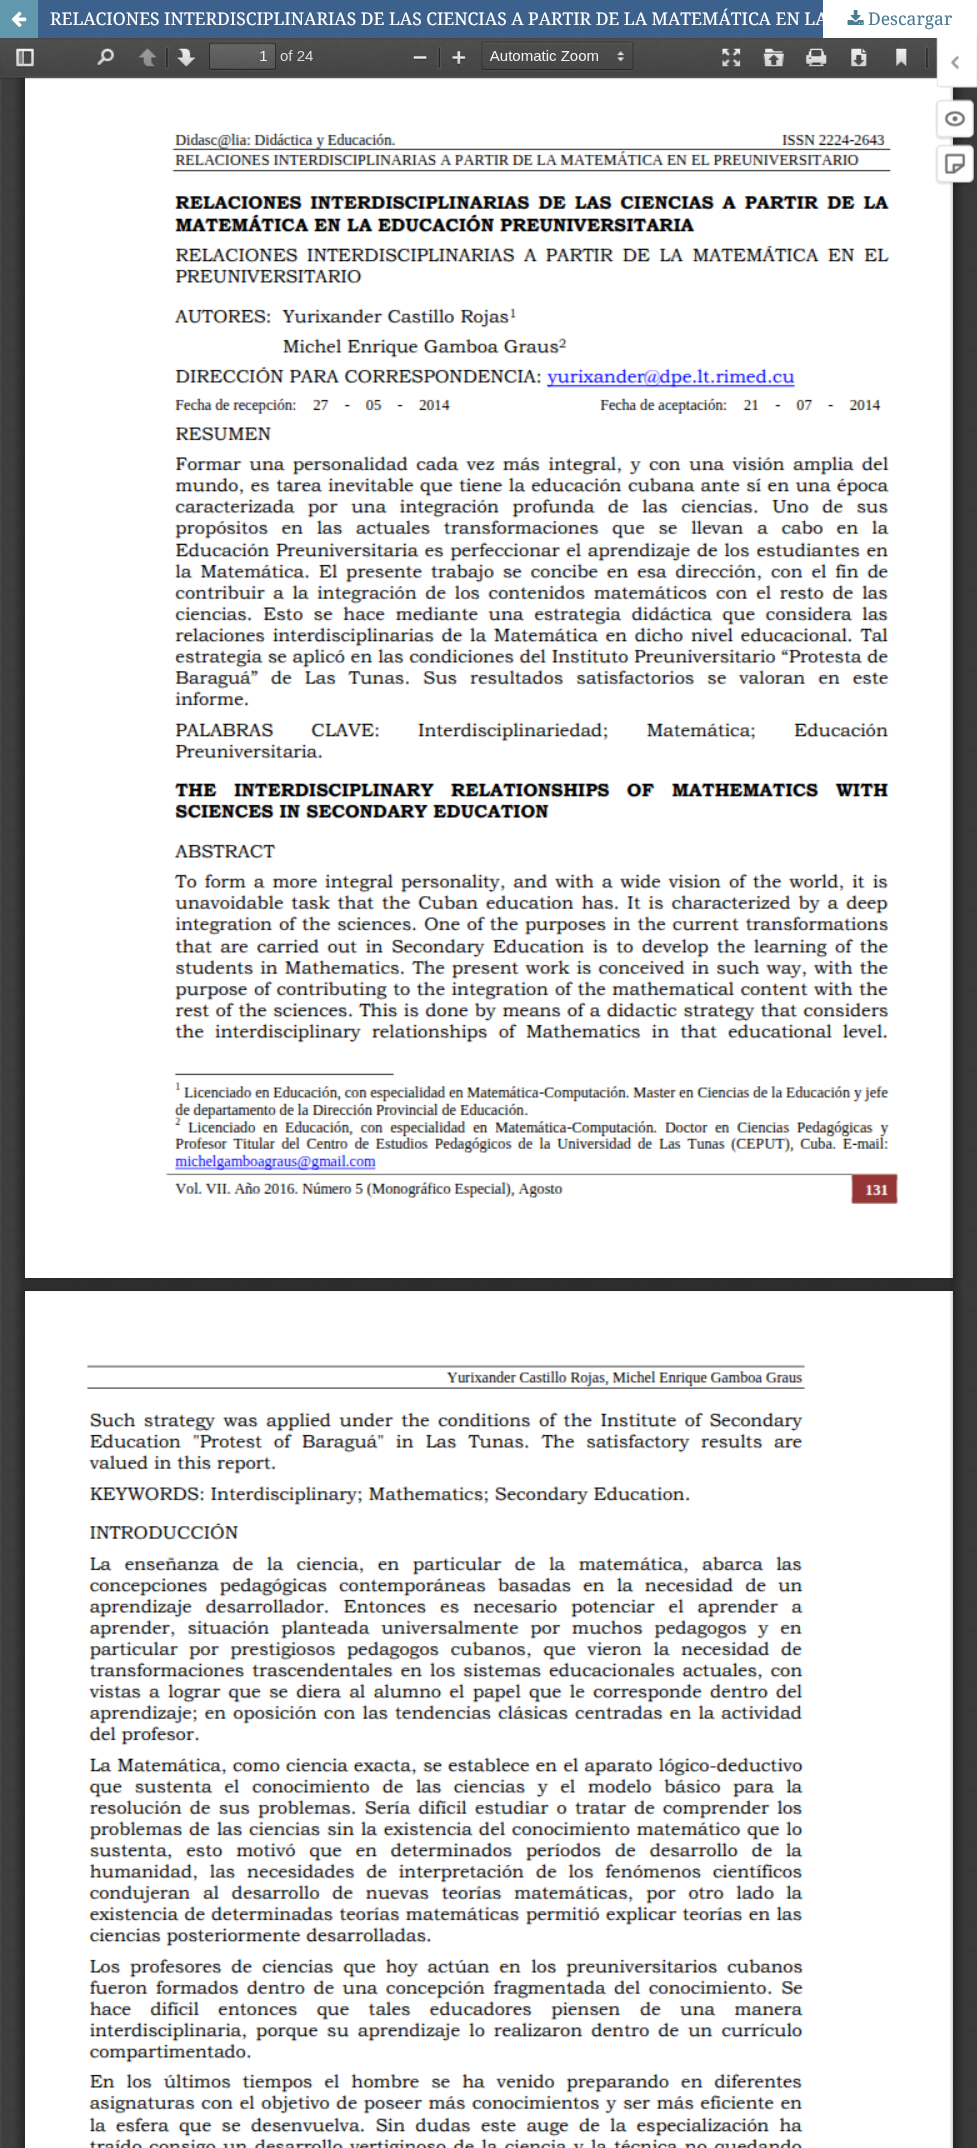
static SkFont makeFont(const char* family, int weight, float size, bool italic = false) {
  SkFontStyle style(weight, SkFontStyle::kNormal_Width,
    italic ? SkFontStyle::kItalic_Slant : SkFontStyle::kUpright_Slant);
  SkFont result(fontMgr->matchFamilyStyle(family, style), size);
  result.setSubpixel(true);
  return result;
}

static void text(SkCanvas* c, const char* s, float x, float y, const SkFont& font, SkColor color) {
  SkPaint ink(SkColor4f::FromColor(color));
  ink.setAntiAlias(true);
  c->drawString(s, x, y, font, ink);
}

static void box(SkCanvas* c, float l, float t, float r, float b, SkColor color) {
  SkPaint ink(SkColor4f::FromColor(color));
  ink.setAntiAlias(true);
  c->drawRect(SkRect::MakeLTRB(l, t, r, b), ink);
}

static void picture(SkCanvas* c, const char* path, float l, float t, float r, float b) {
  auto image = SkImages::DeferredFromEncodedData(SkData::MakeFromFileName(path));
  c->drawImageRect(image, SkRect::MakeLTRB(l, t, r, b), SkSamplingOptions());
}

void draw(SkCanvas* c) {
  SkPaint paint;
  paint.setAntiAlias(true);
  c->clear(0xffffffff);
  box(c, 38, 0, 823, 38, 0xff3c618d);
  box(c, 0, 0, 38, 38, 0xff6298ae);
  picture(c, "img_01.png", 11, 11, 27, 27);
  SkFont face1 = makeFont("Noto Serif", 400, 17.5f);
  text(c, "RELACIONES INTERDISCIPLINARIAS DE LAS CIENCIAS A PARTIR DE LA MATEMÁTICA EN LA", 50, 25, face1, 0xffffffff);
  picture(c, "img_02.png", 847, 10, 864, 25);
  text(c, "Descargar", 868, 25, face1, 0xff4b7d92);
  picture(c, "img_03.png", 0, 38, 977, 2148);
}
